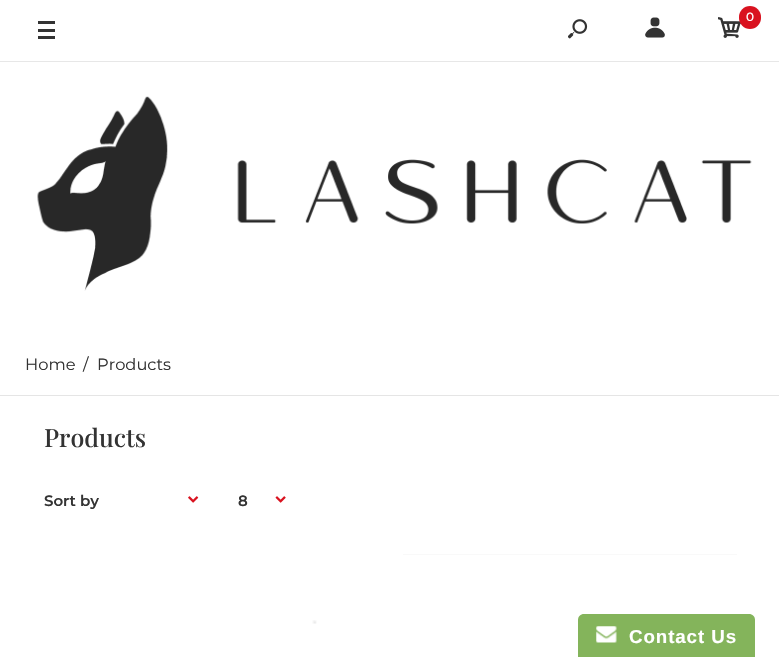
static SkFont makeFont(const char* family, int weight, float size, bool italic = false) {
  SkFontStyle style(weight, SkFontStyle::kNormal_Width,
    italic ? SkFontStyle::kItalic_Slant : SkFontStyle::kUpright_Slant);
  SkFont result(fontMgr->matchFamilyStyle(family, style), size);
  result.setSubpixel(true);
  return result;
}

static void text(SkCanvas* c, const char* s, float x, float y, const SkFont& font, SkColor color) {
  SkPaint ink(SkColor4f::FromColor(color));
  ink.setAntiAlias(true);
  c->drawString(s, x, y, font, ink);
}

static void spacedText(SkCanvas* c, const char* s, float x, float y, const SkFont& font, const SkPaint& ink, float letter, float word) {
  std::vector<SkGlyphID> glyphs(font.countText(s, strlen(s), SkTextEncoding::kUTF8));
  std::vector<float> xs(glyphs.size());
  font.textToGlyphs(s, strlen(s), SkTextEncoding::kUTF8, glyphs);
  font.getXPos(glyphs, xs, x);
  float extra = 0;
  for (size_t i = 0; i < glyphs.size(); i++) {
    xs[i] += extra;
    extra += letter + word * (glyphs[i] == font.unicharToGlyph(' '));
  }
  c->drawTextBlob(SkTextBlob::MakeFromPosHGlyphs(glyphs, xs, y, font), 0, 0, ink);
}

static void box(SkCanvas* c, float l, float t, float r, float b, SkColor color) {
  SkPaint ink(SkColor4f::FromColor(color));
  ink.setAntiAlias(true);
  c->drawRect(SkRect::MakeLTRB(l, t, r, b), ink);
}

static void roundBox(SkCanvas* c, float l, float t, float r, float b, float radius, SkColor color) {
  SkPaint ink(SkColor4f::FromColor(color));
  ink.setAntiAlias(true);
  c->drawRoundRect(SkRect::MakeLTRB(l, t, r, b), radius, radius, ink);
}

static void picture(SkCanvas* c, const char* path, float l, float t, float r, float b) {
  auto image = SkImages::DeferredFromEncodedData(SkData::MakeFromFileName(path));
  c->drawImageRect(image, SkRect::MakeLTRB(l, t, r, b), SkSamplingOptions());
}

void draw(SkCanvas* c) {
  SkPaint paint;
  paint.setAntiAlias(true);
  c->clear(0xffffffff);
  box(c, 0, 61, 779, 62, 0xffe7e7e7);
  box(c, 38, 29, 55, 32, 0xff333333);
  box(c, 38, 21, 55, 24, 0xff333333);
  box(c, 38, 36, 55, 39, 0xff333333);
  picture(c, "img_01.png", 568, 19, 588, 39);
  picture(c, "img_02.png", 645, 17, 665, 38);
  picture(c, "img_03.png", 718, 17, 741, 38);
  roundBox(c, 739, 6, 761, 29, 11, 0xffd9121f);
  SkFont face1 = makeFont("Montserrat", 500, 12);
  text(c, "0", 746, 21, face1, 0xffffffff);
  picture(c, "img_04.png", 37, 96, 752, 291);
  box(c, 0, 395, 779, 396, 0xffe5e5e5);
  SkFont face2 = makeFont("Montserrat", 400, 16.25f);
  text(c, "Home", 25, 370, face2, 0xff333333);
  text(c, "/", 83, 370, face2, 0xff333333);
  text(c, "Products", 97, 370, face2, 0xff333333);
  SkFont face3 = makeFont("Playfair Display", 500, 25);
  text(c, "Products", 44, 447, face3, 0xff333333);
  SkFont face4 = makeFont("Montserrat", 600, 15);
  text(c, "Sort by", 44, 506, face4, 0xff333333);
  picture(c, "img_05.png", 188, 496, 199, 503);
  text(c, "8", 238, 506, face4, 0xff333333);
  picture(c, "img_06.png", 275, 496, 286, 503);
  box(c, 403, 554, 737, 555, 0xfff9f9f9);
  picture(c, "img_07.png", 312, 620, 317, 624);
  paint.setColor(0xff84b45b);
  c->drawPath(SkPathBuilder().moveTo(584, 614).lineTo(749, 614).cubicTo(752.5f, 614, 755, 616.5f, 755, 620).lineTo(755, 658).lineTo(578, 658).lineTo(578, 620).cubicTo(578, 616.5f, 580.5f, 614, 584, 614).close().detach(), paint);
  picture(c, "img_08.png", 596, 626, 617, 643);
  SkFont face5 = makeFont("Liberation Sans", 700, 18.75f);
  paint.setColor(0xffffffff);
  spacedText(c, "Contact Us", 629, 643, face5, paint, 0.9f, 0);
}
